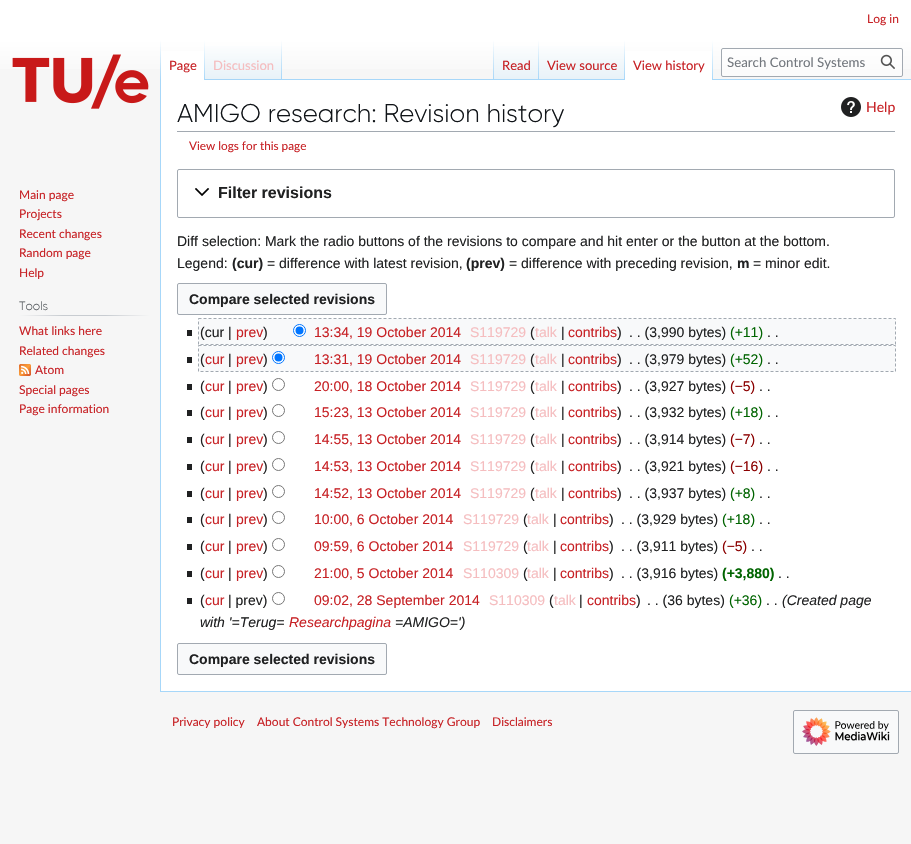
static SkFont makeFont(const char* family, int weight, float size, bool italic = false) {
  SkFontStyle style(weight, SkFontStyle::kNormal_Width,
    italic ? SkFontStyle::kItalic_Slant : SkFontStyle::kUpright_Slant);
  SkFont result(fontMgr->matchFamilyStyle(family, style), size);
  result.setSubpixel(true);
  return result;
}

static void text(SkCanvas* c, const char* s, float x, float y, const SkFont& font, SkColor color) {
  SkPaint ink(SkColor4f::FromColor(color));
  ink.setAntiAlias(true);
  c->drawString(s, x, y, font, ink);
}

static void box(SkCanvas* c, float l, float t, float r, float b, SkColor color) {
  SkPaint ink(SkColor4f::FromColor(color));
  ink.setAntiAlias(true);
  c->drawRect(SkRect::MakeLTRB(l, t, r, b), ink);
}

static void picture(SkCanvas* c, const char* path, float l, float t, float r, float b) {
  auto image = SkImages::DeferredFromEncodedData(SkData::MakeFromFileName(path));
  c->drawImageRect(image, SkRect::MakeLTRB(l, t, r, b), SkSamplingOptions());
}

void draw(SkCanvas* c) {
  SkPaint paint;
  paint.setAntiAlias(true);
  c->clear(0xfff6f6f6);
  {
    const SkColor colors[] = {0xffffffff, 0xfff6f6f6};
    const float stops[] = {0.5f, 1};
    const SkPoint ends[] = {{456, 0}, {456, 80}};
    paint.setShader(SkGradientShader::MakeLinear(ends, colors, stops, 2, SkTileMode::kClamp));
    paint.setAlpha(255);
  }
  c->drawRect(SkRect::MakeLTRB(0, 0, 911, 69), paint);
  SkFont face1 = makeFont("Lato", 400, 12);
  text(c, "Log in", 867, 23, face1, 0xffc72125);
  box(c, 160, 691, 911, 692, 0xffa7d7f9);
  box(c, 160, 79, 161, 692, 0xffa7d7f9);
  {
    const SkColor colors[] = {0x00a7d7f9, 0xffa7d7f9};
    const float stops[] = {0, 1};
    const SkPoint ends[] = {{161, 40}, {161, 80}};
    paint.setShader(SkGradientShader::MakeLinear(ends, colors, stops, 2, SkTileMode::kClamp));
    paint.setAlpha(255);
  }
  c->drawRect(SkRect::MakeLTRB(160, 40, 161, 80), paint);
  box(c, 161, 51, 204, 80, 0xffffffff);
  {
    const SkColor colors[] = {0xffffffff, 0xffa7d7f9};
    const float stops[] = {0, 1};
    const SkPoint ends[] = {{205, 40}, {205, 80}};
    paint.setShader(SkGradientShader::MakeLinear(ends, colors, stops, 2, SkTileMode::kClamp));
    paint.setAlpha(255);
  }
  c->drawRect(SkRect::MakeLTRB(204, 40, 205, 80), paint);
  SkFont face2 = makeFont("Lato", 400, 13);
  text(c, "Page", 169, 70, face2, 0xffc72125);
  {
    const SkColor colors[] = {0xff77c1f6, 0xffe8f2f8, 0xffffffff};
    const float stops[] = {0, 0.03f, 1};
    const SkPoint ends[] = {{244, 80}, {244, 40}};
    paint.setShader(SkGradientShader::MakeLinear(ends, colors, stops, 3, SkTileMode::kClamp));
    paint.setAlpha(255);
  }
  c->drawRect(SkRect::MakeLTRB(205, 46, 282, 80), paint);
  {
    const SkColor colors[] = {0x00a7d7f9, 0xffa7d7f9};
    const float stops[] = {0, 1};
    const SkPoint ends[] = {{282, 40}, {282, 80}};
    paint.setShader(SkGradientShader::MakeLinear(ends, colors, stops, 2, SkTileMode::kClamp));
    paint.setAlpha(255);
  }
  c->drawRect(SkRect::MakeLTRB(281, 40, 282, 80), paint);
  text(c, "Discussion", 213, 70, face2, 0xfff5bdbf);
  box(c, 282, 79, 911, 80, 0xffa7d7f9);
  {
    const SkColor colors[] = {0x00a7d7f9, 0xffa7d7f9};
    const float stops[] = {0, 1};
    const SkPoint ends[] = {{494, 40}, {494, 80}};
    paint.setShader(SkGradientShader::MakeLinear(ends, colors, stops, 2, SkTileMode::kClamp));
    paint.setAlpha(255);
  }
  c->drawRect(SkRect::MakeLTRB(493, 40, 494, 80), paint);
  {
    const SkColor colors[] = {0xff77c1f6, 0xffe8f2f8, 0xffffffff};
    const float stops[] = {0, 0.03f, 1};
    const SkPoint ends[] = {{517, 80}, {517, 40}};
    paint.setShader(SkGradientShader::MakeLinear(ends, colors, stops, 3, SkTileMode::kClamp));
    paint.setAlpha(255);
  }
  c->drawRect(SkRect::MakeLTRB(494, 46, 539, 79), paint);
  {
    const SkColor colors[] = {0x00a7d7f9, 0xffa7d7f9};
    const float stops[] = {0, 1};
    const SkPoint ends[] = {{539, 40}, {539, 80}};
    paint.setShader(SkGradientShader::MakeLinear(ends, colors, stops, 2, SkTileMode::kClamp));
    paint.setAlpha(255);
  }
  c->drawRect(SkRect::MakeLTRB(538, 40, 539, 80), paint);
  text(c, "Read", 502, 70, face2, 0xffc72125);
  {
    const SkColor colors[] = {0xff77c1f6, 0xffe8f2f8, 0xffffffff};
    const float stops[] = {0, 0.03f, 1};
    const SkPoint ends[] = {{582, 80}, {582, 40}};
    paint.setShader(SkGradientShader::MakeLinear(ends, colors, stops, 3, SkTileMode::kClamp));
    paint.setAlpha(255);
  }
  c->drawRect(SkRect::MakeLTRB(539, 46, 625, 79), paint);
  {
    const SkColor colors[] = {0x00a7d7f9, 0xffa7d7f9};
    const float stops[] = {0, 1};
    const SkPoint ends[] = {{625, 40}, {625, 80}};
    paint.setShader(SkGradientShader::MakeLinear(ends, colors, stops, 2, SkTileMode::kClamp));
    paint.setAlpha(255);
  }
  c->drawRect(SkRect::MakeLTRB(624, 40, 625, 80), paint);
  text(c, "View source", 547, 70, face2, 0xffc72125);
  box(c, 625, 51, 712, 80, 0xffffffff);
  {
    const SkColor colors[] = {0xffffffff, 0xffa7d7f9};
    const float stops[] = {0, 1};
    const SkPoint ends[] = {{713, 40}, {713, 80}};
    paint.setShader(SkGradientShader::MakeLinear(ends, colors, stops, 2, SkTileMode::kClamp));
    paint.setAlpha(255);
  }
  c->drawRect(SkRect::MakeLTRB(712, 40, 713, 80), paint);
  text(c, "View history", 633, 70, face2, 0xffc72125);
  paint.setShader(nullptr);
  paint.setColor(0x80ffffff);
  c->drawRoundRect(SkRect::MakeLTRB(721.5f, 48.5f, 902.5f, 76.5f), 1.5f, 1.5f, paint);
  paint.setStyle(SkPaint::kStroke_Style);
  paint.setStrokeWidth(1);
  paint.setColor(0xffa2a9b1);
  c->drawRoundRect(SkRect::MakeLTRB(721.5f, 48.5f, 902.5f, 76.5f), 1.5f, 1.5f, paint);
  SkFont face3 = makeFont("Lato", 400, 13.25f);
  text(c, "Search Control Systems", 727, 67, face3, 0xff72777d);
  picture(c, "img_01.png", 880, 54, 895, 69);
  picture(c, "img_02.png", 12, 54, 149, 109);
  text(c, "Main page", 19, 199, face1, 0xffc72125);
  text(c, "Projects", 19, 218, face1, 0xffc72125);
  text(c, "Recent changes", 19, 238, face1, 0xffc72125);
  text(c, "Random page", 19, 257, face1, 0xffc72125);
  text(c, "Help", 19, 277, face1, 0xffc72125);
  paint.setStyle(SkPaint::kFill_Style);
  {
    const SkColor colors[] = {0xfff6f6f6, 0xffc8ccd1, 0xffc8ccd1, 0xfff6f6f6};
    const float stops[] = {0, 0.33f, 0.66f, 1};
    const SkPoint ends[] = {{19, 316}, {150, 316}};
    paint.setShader(SkGradientShader::MakeLinear(ends, colors, stops, 4, SkTileMode::kClamp));
    paint.setAlpha(255);
  }
  c->drawRect(SkRect::MakeLTRB(19, 315, 150, 316), paint);
  SkFont face4 = makeFont("Gilroy", 300, 12);
  text(c, "Tools", 19, 310, face4, 0xff54595d);
  text(c, "What links here", 19, 335, face1, 0xffc72125);
  text(c, "Related changes", 19, 355, face1, 0xffc72125);
  picture(c, "img_03.png", 19, 364, 31, 376);
  text(c, "Atom", 35, 374, face1, 0xffc72125);
  text(c, "Special pages", 19, 394, face1, 0xffc72125);
  text(c, "Page information", 19, 413, face1, 0xffc72125);
  box(c, 161, 80, 911, 691, 0xffffffff);
  box(c, 177, 131, 895, 132, 0xffa2a9b1);
  SkFont face5 = makeFont("Gilroy", 300, 25.6f);
  text(c, "AMIGO research: Revision history", 177, 122, face5, 0xff101418);
  picture(c, "img_04.png", 841, 97, 861, 117);
  SkFont face6 = makeFont("Lato", 400, 14);
  text(c, "Help", 866, 112, face6, 0xffc72125);
  SkFont face7 = makeFont("Lato", 400, 11.75f);
  text(c, "View logs for this page", 189, 150, face7, 0xffc72125);
  paint.setStyle(SkPaint::kStroke_Style);
  paint.setShader(nullptr);
  paint.setColor(0xffa2a9b1);
  c->drawRoundRect(SkRect::MakeLTRB(177.5f, 169.5f, 894.5f, 217.5f), 1.5f, 1.5f, paint);
  picture(c, "img_05.png", 195, 188, 210, 196);
  SkFont face8 = makeFont("Liberation Sans", 700, 16);
  text(c, "Filter revisions", 218, 198, face8, 0xff202122);
  SkFont face9 = makeFont("Liberation Sans", 400, 14);
  text(c, "Diff selection: Mark the radio buttons of the revisions to compare and hit enter or the button at the bottom.", 177, 246, face9, 0xff202122);
  text(c, "Legend:", 177, 268, face9, 0xff202122);
  SkFont face10 = makeFont("Liberation Sans", 700, 14);
  text(c, "(cur)", 232, 268, face10, 0xff202122);
  text(c, "= difference with latest revision,", 267, 268, face9, 0xff202122);
  text(c, "(prev)", 466, 268, face10, 0xff202122);
  text(c, "= difference with preceding revision,", 509, 268, face9, 0xff202122);
  text(c, "m", 737, 268, face10, 0xff202122);
  text(c, "= minor edit.", 753, 268, face9, 0xff202122);
  paint.setStyle(SkPaint::kFill_Style);
  paint.setColor(0xfff8f9fa);
  c->drawRoundRect(SkRect::MakeLTRB(177.5f, 283.5f, 386.5f, 314.5f), 1.5f, 1.5f, paint);
  paint.setStyle(SkPaint::kStroke_Style);
  paint.setColor(0xffa2a9b1);
  c->drawRoundRect(SkRect::MakeLTRB(177.5f, 283.5f, 386.5f, 314.5f), 1.5f, 1.5f, paint);
  text(c, "Compare selected revisions", 189, 304, face10, 0xff202122);
  box(c, 199, 319, 895, 344, 0xfff8f9fa);
  box(c, 187, 330, 192, 336, 0xff202122);
  text(c, "(cur |", 200, 337, face9, 0xff202122);
  text(c, "prev", 236, 337, face9, 0xffc72125);
  text(c, ")", 263, 337, face9, 0xff202122);
  paint.setStyle(SkPaint::kFill_Style);
  paint.setColor(0xffffffff);
  c->drawCircle(299.5f, 330.5f, 6, paint);
  paint.setStyle(SkPaint::kStroke_Style);
  paint.setColor(0xff0075ff);
  c->drawCircle(299.5f, 330.5f, 6, paint);
  paint.setStyle(SkPaint::kFill_Style);
  c->drawCircle(299.5f, 330.5f, 4, paint);
  text(c, "13:34, 19 October 2014", 314, 337, face9, 0xffc72125);
  text(c, "S119729", 470, 337, face9, 0xfff5bdbf);
  text(c, "(", 530, 337, face9, 0xff202122);
  text(c, "talk", 535, 337, face9, 0xfff5bdbf);
  text(c, "|", 561, 337, face9, 0xff202122);
  text(c, "contribs", 568, 337, face9, 0xffc72125);
  text(c, ")", 617, 337, face9, 0xff202122);
  text(c, ". . (3,990 bytes)", 629, 337, face9, 0xff202122);
  text(c, "(+11)", 730, 337, face9, 0xff006400);
  text(c, ". .", 767, 337, face9, 0xff202122);
  paint.setStyle(SkPaint::kStroke_Style);
  paint.setColor(0xffa2a9b1);
  paint.setPathEffect(SkDashPathEffect::Make({{3, 2}}, 0));
  c->drawPath(SkPathBuilder().moveTo(198.5f, 318.5f).lineTo(895.5f, 318.5f).lineTo(895.5f, 344.5f).lineTo(198.5f, 344.5f).close().detach(), paint);
  paint.setPathEffect(nullptr);
  box(c, 199, 346, 895, 371, 0xfff8f9fa);
  box(c, 187, 357, 192, 363, 0xff202122);
  text(c, "(", 200, 364, face9, 0xff202122);
  text(c, "cur", 205, 364, face9, 0xffc72125);
  text(c, "|", 228, 364, face9, 0xff202122);
  text(c, "prev", 236, 364, face9, 0xffc72125);
  text(c, ")", 263, 364, face9, 0xff202122);
  paint.setStyle(SkPaint::kFill_Style);
  paint.setColor(0xffffffff);
  c->drawCircle(278.5f, 357.5f, 6, paint);
  paint.setStyle(SkPaint::kStroke_Style);
  paint.setColor(0xff0075ff);
  c->drawCircle(278.5f, 357.5f, 6, paint);
  paint.setStyle(SkPaint::kFill_Style);
  c->drawCircle(278.5f, 357.5f, 4, paint);
  text(c, "13:31, 19 October 2014", 314, 364, face9, 0xffc72125);
  text(c, "S119729", 470, 364, face9, 0xfff5bdbf);
  text(c, "(", 530, 364, face9, 0xff202122);
  text(c, "talk", 535, 364, face9, 0xfff5bdbf);
  text(c, "|", 561, 364, face9, 0xff202122);
  text(c, "contribs", 568, 364, face9, 0xffc72125);
  text(c, ")", 617, 364, face9, 0xff202122);
  text(c, ". . (3,979 bytes)", 629, 364, face9, 0xff202122);
  text(c, "(+52)", 730, 364, face9, 0xff006400);
  text(c, ". .", 767, 364, face9, 0xff202122);
  paint.setStyle(SkPaint::kStroke_Style);
  paint.setColor(0xffa2a9b1);
  paint.setPathEffect(SkDashPathEffect::Make({{3, 2}}, 0));
  c->drawPath(SkPathBuilder().moveTo(198.5f, 345.5f).lineTo(895.5f, 345.5f).lineTo(895.5f, 371.5f).lineTo(198.5f, 371.5f).close().detach(), paint);
  paint.setPathEffect(nullptr);
  box(c, 187, 384, 192, 390, 0xff202122);
  text(c, "(", 200, 391, face9, 0xff202122);
  text(c, "cur", 205, 391, face9, 0xffc72125);
  text(c, "|", 228, 391, face9, 0xff202122);
  text(c, "prev", 236, 391, face9, 0xffc72125);
  text(c, ")", 263, 391, face9, 0xff202122);
  paint.setColor(0xff767676);
  c->drawCircle(278.5f, 384.5f, 6, paint);
  text(c, "20:00, 18 October 2014", 314, 391, face9, 0xffc72125);
  text(c, "S119729", 470, 391, face9, 0xfff5bdbf);
  text(c, "(", 530, 391, face9, 0xff202122);
  text(c, "talk", 535, 391, face9, 0xfff5bdbf);
  text(c, "|", 561, 391, face9, 0xff202122);
  text(c, "contribs", 568, 391, face9, 0xffc72125);
  text(c, ")", 617, 391, face9, 0xff202122);
  text(c, ". . (3,927 bytes)", 629, 391, face9, 0xff202122);
  text(c, "(−5)", 730, 391, face9, 0xff8b0000);
  text(c, ". .", 759, 391, face9, 0xff202122);
  box(c, 187, 410, 192, 416, 0xff202122);
  text(c, "(", 200, 417, face9, 0xff202122);
  text(c, "cur", 205, 417, face9, 0xffc72125);
  text(c, "|", 228, 417, face9, 0xff202122);
  text(c, "prev", 236, 417, face9, 0xffc72125);
  text(c, ")", 263, 417, face9, 0xff202122);
  c->drawCircle(278.5f, 410.5f, 6, paint);
  text(c, "15:23, 13 October 2014", 314, 417, face9, 0xffc72125);
  text(c, "S119729", 470, 417, face9, 0xfff5bdbf);
  text(c, "(", 530, 417, face9, 0xff202122);
  text(c, "talk", 535, 417, face9, 0xfff5bdbf);
  text(c, "|", 561, 417, face9, 0xff202122);
  text(c, "contribs", 568, 417, face9, 0xffc72125);
  text(c, ")", 617, 417, face9, 0xff202122);
  text(c, ". . (3,932 bytes)", 629, 417, face9, 0xff202122);
  text(c, "(+18)", 730, 417, face9, 0xff006400);
  text(c, ". .", 767, 417, face9, 0xff202122);
  box(c, 187, 437, 192, 443, 0xff202122);
  text(c, "(", 200, 444, face9, 0xff202122);
  text(c, "cur", 205, 444, face9, 0xffc72125);
  text(c, "|", 228, 444, face9, 0xff202122);
  text(c, "prev", 236, 444, face9, 0xffc72125);
  text(c, ")", 263, 444, face9, 0xff202122);
  c->drawCircle(278.5f, 437.5f, 6, paint);
  text(c, "14:55, 13 October 2014", 314, 444, face9, 0xffc72125);
  text(c, "S119729", 470, 444, face9, 0xfff5bdbf);
  text(c, "(", 530, 444, face9, 0xff202122);
  text(c, "talk", 535, 444, face9, 0xfff5bdbf);
  text(c, "|", 561, 444, face9, 0xff202122);
  text(c, "contribs", 568, 444, face9, 0xffc72125);
  text(c, ")", 617, 444, face9, 0xff202122);
  text(c, ". . (3,914 bytes)", 629, 444, face9, 0xff202122);
  text(c, "(−7)", 730, 444, face9, 0xff8b0000);
  text(c, ". .", 759, 444, face9, 0xff202122);
  box(c, 187, 464, 192, 470, 0xff202122);
  text(c, "(", 200, 471, face9, 0xff202122);
  text(c, "cur", 205, 471, face9, 0xffc72125);
  text(c, "|", 228, 471, face9, 0xff202122);
  text(c, "prev", 236, 471, face9, 0xffc72125);
  text(c, ")", 263, 471, face9, 0xff202122);
  c->drawCircle(278.5f, 464.5f, 6, paint);
  text(c, "14:53, 13 October 2014", 314, 471, face9, 0xffc72125);
  text(c, "S119729", 470, 471, face9, 0xfff5bdbf);
  text(c, "(", 530, 471, face9, 0xff202122);
  text(c, "talk", 535, 471, face9, 0xfff5bdbf);
  text(c, "|", 561, 471, face9, 0xff202122);
  text(c, "contribs", 568, 471, face9, 0xffc72125);
  text(c, ")", 617, 471, face9, 0xff202122);
  text(c, ". . (3,921 bytes)", 629, 471, face9, 0xff202122);
  text(c, "(−16)", 730, 471, face9, 0xff8b0000);
  text(c, ". .", 767, 471, face9, 0xff202122);
  box(c, 187, 491, 192, 497, 0xff202122);
  text(c, "(", 200, 498, face9, 0xff202122);
  text(c, "cur", 205, 498, face9, 0xffc72125);
  text(c, "|", 228, 498, face9, 0xff202122);
  text(c, "prev", 236, 498, face9, 0xffc72125);
  text(c, ")", 263, 498, face9, 0xff202122);
  c->drawCircle(278.5f, 491.5f, 6, paint);
  text(c, "14:52, 13 October 2014", 314, 498, face9, 0xffc72125);
  text(c, "S119729", 470, 498, face9, 0xfff5bdbf);
  text(c, "(", 530, 498, face9, 0xff202122);
  text(c, "talk", 535, 498, face9, 0xfff5bdbf);
  text(c, "|", 561, 498, face9, 0xff202122);
  text(c, "contribs", 568, 498, face9, 0xffc72125);
  text(c, ")", 617, 498, face9, 0xff202122);
  text(c, ". . (3,937 bytes)", 629, 498, face9, 0xff202122);
  text(c, "(+8)", 730, 498, face9, 0xff006400);
  text(c, ". .", 759, 498, face9, 0xff202122);
  box(c, 187, 517, 192, 523, 0xff202122);
  text(c, "(", 200, 524, face9, 0xff202122);
  text(c, "cur", 205, 524, face9, 0xffc72125);
  text(c, "|", 228, 524, face9, 0xff202122);
  text(c, "prev", 236, 524, face9, 0xffc72125);
  text(c, ")", 263, 524, face9, 0xff202122);
  c->drawCircle(278.5f, 517.5f, 6, paint);
  text(c, "10:00, 6 October 2014", 314, 524, face9, 0xffc72125);
  text(c, "S119729", 463, 524, face9, 0xfff5bdbf);
  text(c, "(", 523, 524, face9, 0xff202122);
  text(c, "talk", 527, 524, face9, 0xfff5bdbf);
  text(c, "|", 553, 524, face9, 0xff202122);
  text(c, "contribs", 560, 524, face9, 0xffc72125);
  text(c, ")", 609, 524, face9, 0xff202122);
  text(c, ". . (3,929 bytes)", 621, 524, face9, 0xff202122);
  text(c, "(+18)", 722, 524, face9, 0xff006400);
  text(c, ". .", 759, 524, face9, 0xff202122);
  box(c, 187, 544, 192, 550, 0xff202122);
  text(c, "(", 200, 551, face9, 0xff202122);
  text(c, "cur", 205, 551, face9, 0xffc72125);
  text(c, "|", 228, 551, face9, 0xff202122);
  text(c, "prev", 236, 551, face9, 0xffc72125);
  text(c, ")", 263, 551, face9, 0xff202122);
  c->drawCircle(278.5f, 544.5f, 6, paint);
  text(c, "09:59, 6 October 2014", 314, 551, face9, 0xffc72125);
  text(c, "S119729", 463, 551, face9, 0xfff5bdbf);
  text(c, "(", 523, 551, face9, 0xff202122);
  text(c, "talk", 527, 551, face9, 0xfff5bdbf);
  text(c, "|", 553, 551, face9, 0xff202122);
  text(c, "contribs", 560, 551, face9, 0xffc72125);
  text(c, ")", 609, 551, face9, 0xff202122);
  text(c, ". . (3,911 bytes)", 621, 551, face9, 0xff202122);
  text(c, "(−5)", 722, 551, face9, 0xff8b0000);
  text(c, ". .", 751, 551, face9, 0xff202122);
  box(c, 187, 571, 192, 577, 0xff202122);
  text(c, "(", 200, 578, face9, 0xff202122);
  text(c, "cur", 205, 578, face9, 0xffc72125);
  text(c, "|", 228, 578, face9, 0xff202122);
  text(c, "prev", 236, 578, face9, 0xffc72125);
  text(c, ")", 263, 578, face9, 0xff202122);
  c->drawCircle(278.5f, 571.5f, 6, paint);
  text(c, "21:00, 5 October 2014", 314, 578, face9, 0xffc72125);
  text(c, "S110309", 463, 578, face9, 0xfff5bdbf);
  text(c, "(", 523, 578, face9, 0xff202122);
  text(c, "talk", 527, 578, face9, 0xfff5bdbf);
  text(c, "|", 553, 578, face9, 0xff202122);
  text(c, "contribs", 560, 578, face9, 0xffc72125);
  text(c, ")", 609, 578, face9, 0xff202122);
  text(c, ". . (3,916 bytes)", 621, 578, face9, 0xff202122);
  text(c, "(+3,880)", 722, 578, face10, 0xff006400);
  text(c, ". .", 778, 578, face9, 0xff202122);
  box(c, 187, 598, 192, 604, 0xff202122);
  text(c, "(", 200, 605, face9, 0xff202122);
  text(c, "cur", 205, 605, face9, 0xffc72125);
  text(c, "| prev)", 228, 605, face9, 0xff202122);
  c->drawCircle(278.5f, 598.5f, 6, paint);
  text(c, "09:02, 28 September 2014", 314, 605, face9, 0xffc72125);
  text(c, "S110309", 489, 605, face9, 0xfff5bdbf);
  text(c, "(", 549, 605, face9, 0xff202122);
  text(c, "talk", 554, 605, face9, 0xfff5bdbf);
  text(c, "|", 579, 605, face9, 0xff202122);
  text(c, "contribs", 587, 605, face9, 0xffc72125);
  text(c, ")", 636, 605, face9, 0xff202122);
  text(c, ". . (36 bytes)", 647, 605, face9, 0xff202122);
  text(c, "(+36)", 729, 605, face9, 0xff006400);
  text(c, ". .", 766, 605, face9, 0xff202122);
  SkFont face11 = makeFont("Liberation Sans", 400, 14, true);
  text(c, "(Created page", 782, 605, face11, 0xff202122);
  text(c, "with '=Terug=", 200, 627, face11, 0xff202122);
  text(c, "Researchpagina", 289, 627, face11, 0xffc72125);
  text(c, "=AMIGO=')", 395, 627, face11, 0xff202122);
  paint.setStyle(SkPaint::kFill_Style);
  paint.setColor(0xfff8f9fa);
  c->drawRoundRect(SkRect::MakeLTRB(177.5f, 643.5f, 386.5f, 674.5f), 1.5f, 1.5f, paint);
  paint.setStyle(SkPaint::kStroke_Style);
  paint.setColor(0xffa2a9b1);
  c->drawRoundRect(SkRect::MakeLTRB(177.5f, 643.5f, 386.5f, 674.5f), 1.5f, 1.5f, paint);
  text(c, "Compare selected revisions", 189, 664, face10, 0xff202122);
  text(c, "Privacy policy", 172, 726, face1, 0xffc72125);
  text(c, "About Control Systems Technology Group", 257, 726, face1, 0xffc72125);
  text(c, "Disclaimers", 492, 726, face1, 0xffc72125);
  paint.setStyle(SkPaint::kFill_Style);
  paint.setColor(0xfff8f9fa);
  c->drawRoundRect(SkRect::MakeLTRB(793.5f, 710.5f, 898.5f, 753.5f), 1.5f, 1.5f, paint);
  paint.setStyle(SkPaint::kStroke_Style);
  paint.setColor(0xffa2a9b1);
  c->drawRoundRect(SkRect::MakeLTRB(793.5f, 710.5f, 898.5f, 753.5f), 1.5f, 1.5f, paint);
  picture(c, "img_06.png", 802, 717, 890, 746);
}
